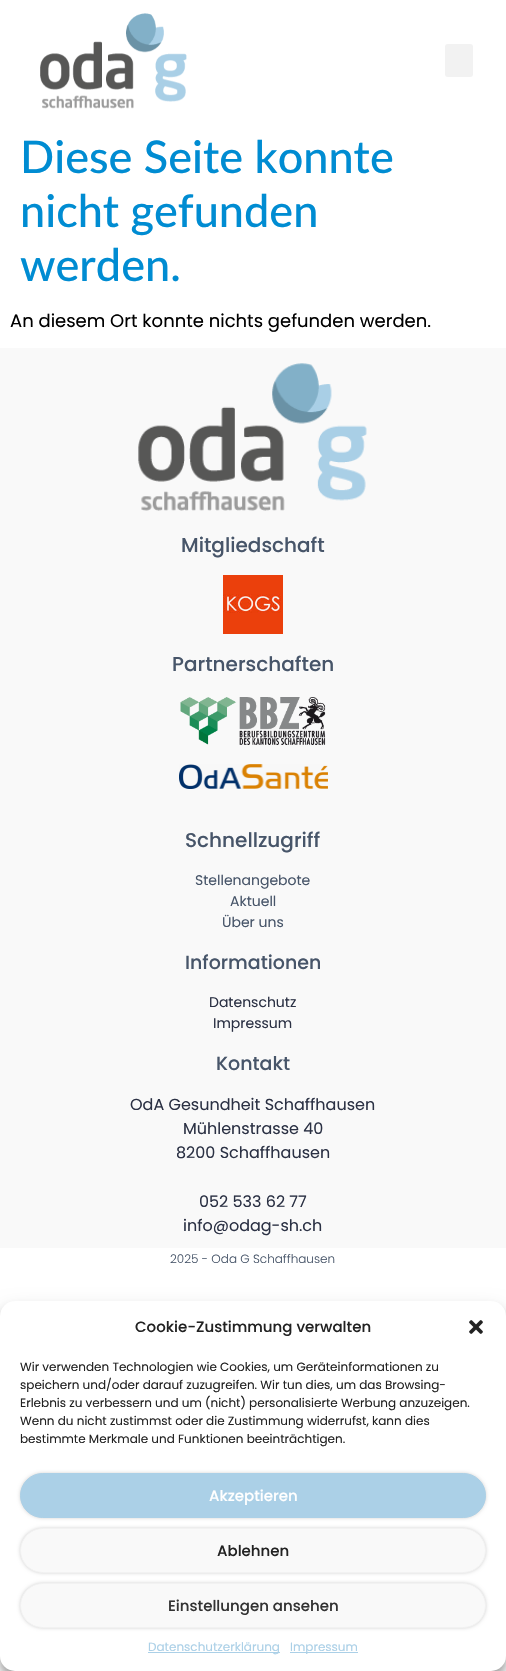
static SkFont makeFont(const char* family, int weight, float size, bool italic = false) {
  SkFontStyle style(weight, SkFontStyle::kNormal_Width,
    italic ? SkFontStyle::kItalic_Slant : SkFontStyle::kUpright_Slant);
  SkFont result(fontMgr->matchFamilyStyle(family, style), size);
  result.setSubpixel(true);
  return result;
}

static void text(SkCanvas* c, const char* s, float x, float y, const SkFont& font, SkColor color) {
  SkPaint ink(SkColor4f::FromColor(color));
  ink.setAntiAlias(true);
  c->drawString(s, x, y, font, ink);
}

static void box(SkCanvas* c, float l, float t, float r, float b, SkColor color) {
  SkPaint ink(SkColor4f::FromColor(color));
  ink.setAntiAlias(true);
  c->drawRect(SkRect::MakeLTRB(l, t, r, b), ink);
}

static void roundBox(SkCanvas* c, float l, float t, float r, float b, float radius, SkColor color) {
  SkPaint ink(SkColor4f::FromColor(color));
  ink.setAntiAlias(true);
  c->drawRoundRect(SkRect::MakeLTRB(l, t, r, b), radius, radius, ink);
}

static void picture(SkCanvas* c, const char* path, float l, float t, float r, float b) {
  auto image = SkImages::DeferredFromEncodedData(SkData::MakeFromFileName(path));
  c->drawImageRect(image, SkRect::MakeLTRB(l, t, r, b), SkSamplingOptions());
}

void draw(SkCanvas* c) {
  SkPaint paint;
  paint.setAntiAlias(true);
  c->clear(0xffffffff);
  picture(c, "img_01.png", 40, 13, 187, 109);
  roundBox(c, 445, 44, 473, 77, 3, 0xfff2f2f2);
  SkFont face1 = makeFont("Lato", 500, 45);
  text(c, "Diese Seite konnte", 20, 173, face1, 0xff008cd2);
  text(c, "nicht gefunden", 20, 227, face1, 0xff008cd2);
  text(c, "werden.", 20, 281, face1, 0xff008cd2);
  SkFont face2 = makeFont("Poppins", 400, 18);
  text(c, "An diesem Ort konnte nichts gefunden werden.", 10, 327, face2, 0xff000000);
  box(c, 0, 348, 506, 1248, 0xfff9f9f9);
  picture(c, "img_02.png", 138, 363, 367, 511);
  SkFont face3 = makeFont("Poppins", 500, 20);
  text(c, "Mitgliedschaft", 181, 552, face3, 0xff475569);
  picture(c, "img_03.png", 223, 575, 283, 634);
  text(c, "Partnerschaften", 172, 671, face3, 0xff475569);
  picture(c, "img_04.png", 180, 697, 326, 745);
  picture(c, "img_05.png", 179, 764, 328, 789);
  text(c, "Schnellzugriff", 185, 847, face3, 0xff475569);
  SkFont face4 = makeFont("Poppins", 400, 14);
  text(c, "Stellenangebote", 195, 885, face4, 0xff475569);
  text(c, "Aktuell", 230, 906, face4, 0xff475569);
  text(c, "Über uns", 222, 927, face4, 0xff475569);
  SkFont face5 = makeFont("Poppins", 500, 19);
  text(c, "Informationen", 185, 969, face5, 0xff475569);
  text(c, "Datenschutz", 209, 1007, face4, 0xff2b3144);
  text(c, "Impressum", 213, 1028, face4, 0xff2b3144);
  text(c, "Kontakt", 216, 1070, face5, 0xff475569);
  SkFont face6 = makeFont("Poppins", 400, 16);
  text(c, "OdA Gesundheit Schaffhausen", 130, 1110, face6, 0xff2b3144);
  text(c, "Mühlenstrasse 40", 183, 1134, face6, 0xff2b3144);
  text(c, "8200 Schaffhausen", 176, 1158, face6, 0xff2b3144);
  text(c, "052 533 62 77", 199, 1207, face6, 0xff2b3144);
  text(c, "info@odag-sh.ch", 183, 1231, face6, 0xff2b3144);
  SkFont face7 = makeFont("Poppins", 300, 12);
  text(c, "2025 - Oda G Schaffhausen", 170, 1263, face7, 0xff475569);
  paint.setColor(0x3b000000);
  paint.setMaskFilter(SkMaskFilter::MakeBlur(kNormal_SkBlurStyle, 3));
  c->drawRoundRect(SkRect::MakeLTRB(0, 1307, 506, 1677), 15, 15, paint);
  paint.setMaskFilter(nullptr);
  paint.setColor(0x30000000);
  paint.setMaskFilter(SkMaskFilter::MakeBlur(kNormal_SkBlurStyle, 10));
  c->drawRoundRect(SkRect::MakeLTRB(0, 1311, 506, 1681), 15, 15, paint);
  paint.setMaskFilter(nullptr);
  roundBox(c, 0, 1301, 506, 1671, 15, 0xffffffff);
  SkFont face8 = makeFont("Poppins", 500, 15);
  text(c, "Cookie-Zustimmung verwalten", 135, 1332, face8, 0xff222222);
  picture(c, "img_06.png", 469, 1320, 483, 1334);
  SkFont face9 = makeFont("Poppins", 400, 12);
  text(c, "Wir verwenden Technologien wie Cookies, um Geräteinformationen zu", 20, 1371, face9, 0xff222222);
  text(c, "speichern und/oder darauf zuzugreifen. Wir tun dies, um das Browsing-", 20, 1389, face9, 0xff222222);
  text(c, "Erlebnis zu verbessern und um (nicht) personalisierte Werbung anzuzeigen.", 20, 1407, face9, 0xff222222);
  text(c, "Wenn du nicht zustimmst oder die Zustimmung widerrufst, kann dies", 20, 1425, face9, 0xff222222);
  text(c, "bestimmte Merkmale und Funktionen beeinträchtigen.", 20, 1443, face9, 0xff222222);
  paint.setColor(0x47000000);
  paint.setMaskFilter(SkMaskFilter::MakeBlur(kNormal_SkBlurStyle, 2));
  c->drawRoundRect(SkRect::MakeLTRB(21, 1474, 485, 1517), 21.5f, 21.5f, paint);
  paint.setMaskFilter(nullptr);
  paint.setColor(0xffabd0e7);
  c->drawRoundRect(SkRect::MakeLTRB(20.5f, 1473.5f, 485.5f, 1517.5f), 22, 22, paint);
  paint.setStyle(SkPaint::kStroke_Style);
  paint.setStrokeWidth(1);
  c->drawRoundRect(SkRect::MakeLTRB(20.5f, 1473.5f, 485.5f, 1517.5f), 22, 22, paint);
  text(c, "Akzeptieren", 209, 1501, face8, 0xffffffff);
  paint.setStyle(SkPaint::kFill_Style);
  paint.setColor(0x47000000);
  paint.setMaskFilter(SkMaskFilter::MakeBlur(kNormal_SkBlurStyle, 2));
  c->drawRoundRect(SkRect::MakeLTRB(21, 1529, 485, 1572), 21.5f, 21.5f, paint);
  paint.setMaskFilter(nullptr);
  paint.setColor(0xfff9f9f9);
  c->drawRoundRect(SkRect::MakeLTRB(20.5f, 1528.5f, 485.5f, 1572.5f), 22, 22, paint);
  paint.setStyle(SkPaint::kStroke_Style);
  paint.setColor(0xfff2f2f2);
  c->drawRoundRect(SkRect::MakeLTRB(20.5f, 1528.5f, 485.5f, 1572.5f), 22, 22, paint);
  text(c, "Ablehnen", 217, 1556, face8, 0xff222222);
  paint.setStyle(SkPaint::kFill_Style);
  paint.setColor(0x47000000);
  paint.setMaskFilter(SkMaskFilter::MakeBlur(kNormal_SkBlurStyle, 2));
  c->drawRoundRect(SkRect::MakeLTRB(21, 1584, 485, 1627), 21.5f, 21.5f, paint);
  paint.setMaskFilter(nullptr);
  paint.setColor(0xfff9f9f9);
  c->drawRoundRect(SkRect::MakeLTRB(20.5f, 1583.5f, 485.5f, 1627.5f), 22, 22, paint);
  paint.setStyle(SkPaint::kStroke_Style);
  paint.setColor(0xfff2f2f2);
  c->drawRoundRect(SkRect::MakeLTRB(20.5f, 1583.5f, 485.5f, 1627.5f), 22, 22, paint);
  text(c, "Einstellungen ansehen", 168, 1611, face8, 0xff333333);
  box(c, 148, 1652, 280, 1653, 0xffabd0e7);
  text(c, "Datenschutzerklärung", 148, 1651, face9, 0xffabd0e7);
  box(c, 290, 1652, 358, 1653, 0xffabd0e7);
  text(c, "Impressum", 290, 1651, face9, 0xffabd0e7);
}
